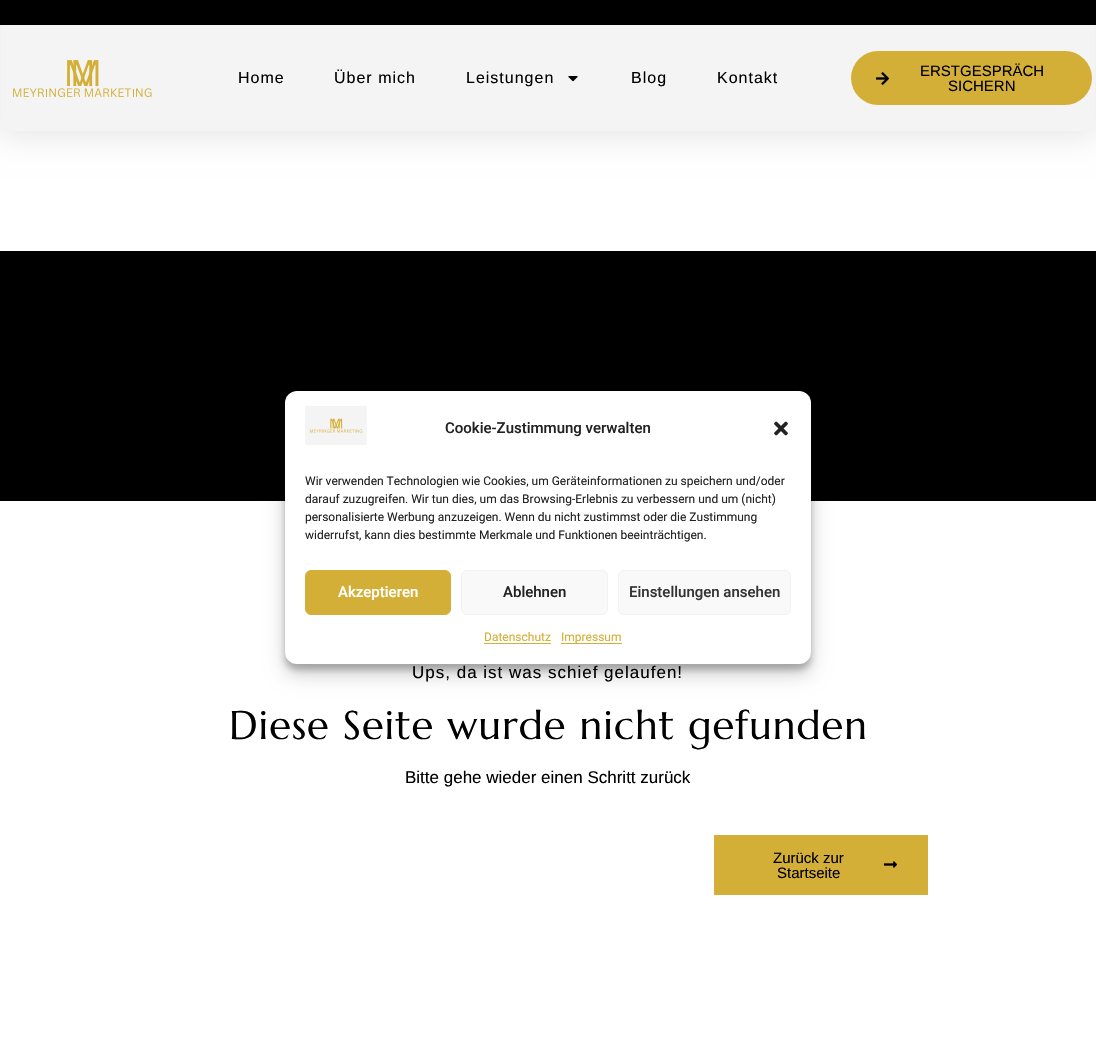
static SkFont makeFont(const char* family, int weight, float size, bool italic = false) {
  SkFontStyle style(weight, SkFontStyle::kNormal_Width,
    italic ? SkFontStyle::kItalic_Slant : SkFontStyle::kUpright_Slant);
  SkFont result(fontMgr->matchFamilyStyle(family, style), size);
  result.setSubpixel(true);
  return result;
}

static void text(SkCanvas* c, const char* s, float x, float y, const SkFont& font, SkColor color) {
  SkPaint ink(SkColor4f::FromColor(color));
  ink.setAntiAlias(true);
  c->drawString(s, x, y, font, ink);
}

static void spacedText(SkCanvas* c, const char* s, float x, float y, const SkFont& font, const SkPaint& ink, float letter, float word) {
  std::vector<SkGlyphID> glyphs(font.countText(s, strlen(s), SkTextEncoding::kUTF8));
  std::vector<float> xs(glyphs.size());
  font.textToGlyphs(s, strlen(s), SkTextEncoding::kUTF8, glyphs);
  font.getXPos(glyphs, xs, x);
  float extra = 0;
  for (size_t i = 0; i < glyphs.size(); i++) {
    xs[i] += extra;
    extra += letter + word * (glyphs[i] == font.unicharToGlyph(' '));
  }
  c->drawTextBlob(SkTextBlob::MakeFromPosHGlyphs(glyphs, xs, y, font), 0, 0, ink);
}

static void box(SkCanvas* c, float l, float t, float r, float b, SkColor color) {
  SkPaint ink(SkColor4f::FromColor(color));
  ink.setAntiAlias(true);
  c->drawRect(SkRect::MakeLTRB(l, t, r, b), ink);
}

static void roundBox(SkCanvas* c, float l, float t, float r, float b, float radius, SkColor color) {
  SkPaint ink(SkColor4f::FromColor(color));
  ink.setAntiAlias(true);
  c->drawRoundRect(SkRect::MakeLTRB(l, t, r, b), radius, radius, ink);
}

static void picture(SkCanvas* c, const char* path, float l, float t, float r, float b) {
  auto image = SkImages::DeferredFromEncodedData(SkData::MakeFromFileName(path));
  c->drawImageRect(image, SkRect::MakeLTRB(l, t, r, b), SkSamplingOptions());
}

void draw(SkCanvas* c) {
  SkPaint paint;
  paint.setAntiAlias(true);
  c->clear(0xffffffff);
  paint.setColor(0x1a000000);
  paint.setMaskFilter(SkMaskFilter::MakeBlur(kNormal_SkBlurStyle, 15));
  c->drawRect(SkRect::MakeLTRB(0, 5, 1096, 136), paint);
  paint.setMaskFilter(nullptr);
  box(c, 0, 0, 1096, 25, 0xff000000);
  box(c, 1, 25, 1095, 131, 0xfff4f4f4);
  picture(c, "img_01.png", 13, 60, 152, 97);
  SkFont face1 = makeFont("Liberation Sans", 400, 16);
  paint.setColor(0xff000000);
  spacedText(c, "Home", 238, 83, face1, paint, 1, 0);
  spacedText(c, "Über mich", 334, 83, face1, paint, 1, 0);
  spacedText(c, "Leistungen", 466, 83, face1, paint, 1, 0);
  picture(c, "img_02.png", 568, 76, 578, 82);
  spacedText(c, "Blog", 631, 83, face1, paint, 1, 0);
  spacedText(c, "Kontakt", 717, 83, face1, paint, 1, 0);
  roundBox(c, 851, 51, 1092, 105, 27, 0xffd4af37);
  picture(c, "img_03.png", 875, 72, 889, 85);
  SkFont face2 = makeFont("Liberation Sans", 400, 15);
  text(c, "ERSTGESPRÄCH", 920, 76, face2, 0xff000000);
  text(c, "SICHERN", 948, 91, face2, 0xff000000);
  box(c, 0, 251, 1096, 501, 0xff000000);
  paint.setColor(0x3b000000);
  paint.setMaskFilter(SkMaskFilter::MakeBlur(kNormal_SkBlurStyle, 3));
  c->drawRoundRect(SkRect::MakeLTRB(285, 397, 811, 670), 12, 12, paint);
  paint.setMaskFilter(nullptr);
  paint.setColor(0x30000000);
  paint.setMaskFilter(SkMaskFilter::MakeBlur(kNormal_SkBlurStyle, 10));
  c->drawRoundRect(SkRect::MakeLTRB(285, 401, 811, 674), 12, 12, paint);
  paint.setMaskFilter(nullptr);
  roundBox(c, 285, 391, 811, 664, 12, 0xffffffff);
  picture(c, "img_04.png", 305, 406, 367, 445);
  SkFont face3 = makeFont("Roboto", 500, 15);
  text(c, "Cookie-Zustimmung verwalten", 445, 433, face3, 0xff222222);
  picture(c, "img_05.png", 774, 421, 788, 436);
  SkFont face4 = makeFont("Roboto", 400, 12);
  text(c, "Wir verwenden Technologien wie Cookies, um Geräteinformationen zu speichern und/oder", 305, 485, face4, 0xff222222);
  text(c, "darauf zuzugreifen. Wir tun dies, um das Browsing-Erlebnis zu verbessern und um (nicht)", 305, 503, face4, 0xff222222);
  text(c, "personalisierte Werbung anzuzeigen. Wenn du nicht zustimmst oder die Zustimmung", 305, 521, face4, 0xff222222);
  text(c, "widerrufst, kann dies bestimmte Merkmale und Funktionen beeinträchtigen.", 305, 539, face4, 0xff222222);
  paint.setColor(0xffd4af37);
  c->drawRoundRect(SkRect::MakeLTRB(305.5f, 570.5f, 450.5f, 614.5f), 5.5f, 5.5f, paint);
  paint.setStyle(SkPaint::kStroke_Style);
  paint.setStrokeWidth(1);
  c->drawRoundRect(SkRect::MakeLTRB(305.5f, 570.5f, 450.5f, 614.5f), 5.5f, 5.5f, paint);
  text(c, "Akzeptieren", 338, 597, face3, 0xffffffff);
  paint.setStyle(SkPaint::kFill_Style);
  paint.setColor(0xfff9f9f9);
  c->drawRoundRect(SkRect::MakeLTRB(461.5f, 570.5f, 607.5f, 614.5f), 5.5f, 5.5f, paint);
  paint.setStyle(SkPaint::kStroke_Style);
  paint.setColor(0xfff2f2f2);
  c->drawRoundRect(SkRect::MakeLTRB(461.5f, 570.5f, 607.5f, 614.5f), 5.5f, 5.5f, paint);
  text(c, "Ablehnen", 503, 597, face3, 0xff222222);
  paint.setStyle(SkPaint::kFill_Style);
  paint.setColor(0xfff9f9f9);
  c->drawRoundRect(SkRect::MakeLTRB(618.5f, 570.5f, 790.5f, 614.5f), 5.5f, 5.5f, paint);
  paint.setStyle(SkPaint::kStroke_Style);
  paint.setColor(0xfff2f2f2);
  c->drawRoundRect(SkRect::MakeLTRB(618.5f, 570.5f, 790.5f, 614.5f), 5.5f, 5.5f, paint);
  text(c, "Einstellungen ansehen", 629, 597, face3, 0xff333333);
  text(c, "Datenschutz", 484, 641, face4, 0xffd4af37);
  box(c, 484, 643, 551, 644, 0xffd4af37);
  box(c, 561, 643, 622, 644, 0xffd4af37);
  text(c, "Impressum", 561, 641, face4, 0xffd4af37);
  SkFont face5 = makeFont("Liberation Sans", 400, 17);
  paint.setStyle(SkPaint::kFill_Style);
  paint.setColor(0xff000000);
  spacedText(c, "Ups, da ist was schief gelaufen!", 412, 678, face5, paint, 1, 0);
  SkFont face6 = makeFont("Marcellus", 400, 40);
  spacedText(c, "Diese Seite wurde nicht gefunden", 229, 739, face6, paint, 1, 0);
  text(c, "Bitte gehe wieder einen Schritt zurück", 405, 783, face5, 0xff000000);
  box(c, 714, 835, 928, 895, 0xffd4af37);
  text(c, "Zurück zur", 773, 863, face2, 0xff000000);
  text(c, "Startseite", 777, 878, face2, 0xff000000);
  picture(c, "img_06.png", 883, 861, 897, 868);
}
